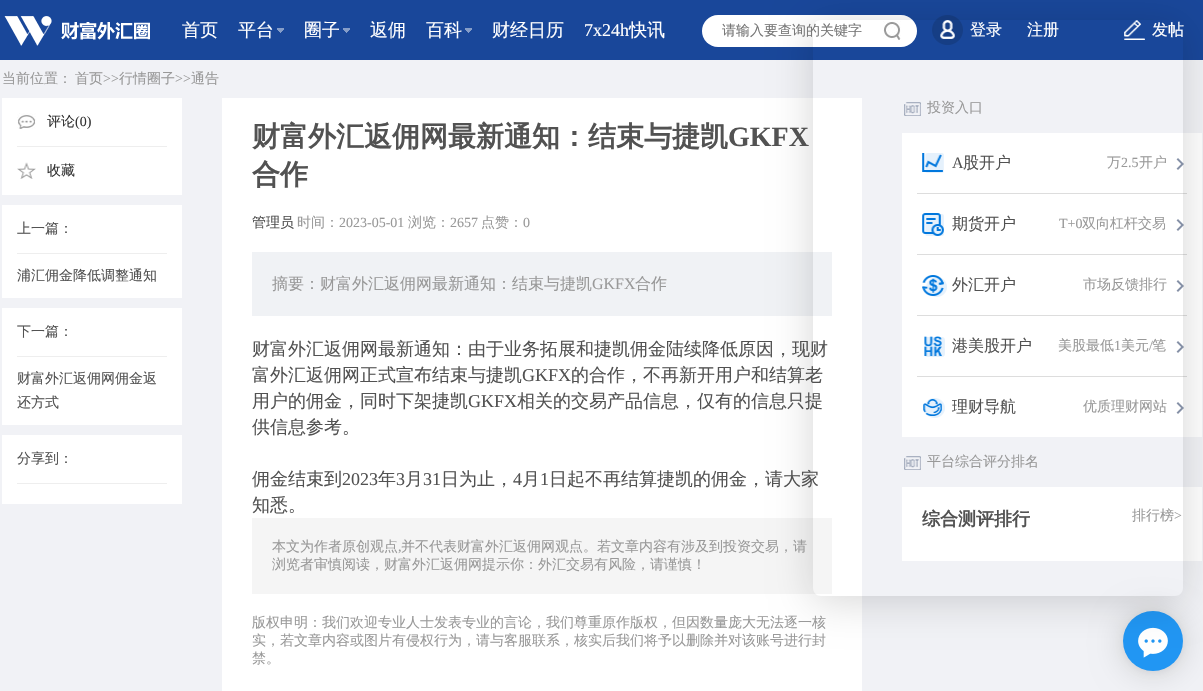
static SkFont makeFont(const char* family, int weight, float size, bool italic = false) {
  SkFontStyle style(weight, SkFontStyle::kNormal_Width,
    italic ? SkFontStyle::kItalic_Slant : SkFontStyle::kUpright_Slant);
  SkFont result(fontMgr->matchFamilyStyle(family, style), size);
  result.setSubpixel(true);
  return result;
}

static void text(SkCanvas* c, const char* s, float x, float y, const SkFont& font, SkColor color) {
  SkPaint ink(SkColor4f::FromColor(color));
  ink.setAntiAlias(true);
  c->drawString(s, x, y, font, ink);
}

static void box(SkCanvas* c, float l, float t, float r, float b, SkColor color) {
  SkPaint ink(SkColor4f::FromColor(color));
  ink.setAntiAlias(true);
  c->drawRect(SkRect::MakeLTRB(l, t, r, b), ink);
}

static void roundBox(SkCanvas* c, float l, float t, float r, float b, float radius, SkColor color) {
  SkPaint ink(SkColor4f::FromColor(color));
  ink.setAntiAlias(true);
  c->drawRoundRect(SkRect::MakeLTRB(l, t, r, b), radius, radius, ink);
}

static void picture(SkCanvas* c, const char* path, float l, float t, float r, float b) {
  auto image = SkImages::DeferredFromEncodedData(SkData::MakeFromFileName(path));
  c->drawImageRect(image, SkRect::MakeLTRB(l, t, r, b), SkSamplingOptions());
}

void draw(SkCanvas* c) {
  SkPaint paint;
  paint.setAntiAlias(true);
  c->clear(0xfff1f2f6);
  paint.setColor(0x29000000);
  paint.setMaskFilter(SkMaskFilter::MakeBlur(kNormal_SkBlurStyle, 16));
  c->drawRoundRect(SkRect::MakeLTRB(1123, 613, 1183, 673), 30, 30, paint);
  paint.setMaskFilter(nullptr);
  paint.setColor(0x0f000000);
  paint.setMaskFilter(SkMaskFilter::MakeBlur(kNormal_SkBlurStyle, 3));
  c->drawRoundRect(SkRect::MakeLTRB(1123, 612, 1183, 672), 30, 30, paint);
  paint.setMaskFilter(nullptr);
  paint.setColor(0xff2196f3);
  c->drawCircle(1153, 641, 30, paint);
  picture(c, "img_01.png", 1138, 627, 1168, 658);
  box(c, 0, 0, 1203, 60, 0xff19479a);
  roundBox(c, 702, 15, 917, 47, 16, 0xffffffff);
  picture(c, "img_04.png", 883, 21, 901, 40);
  picture(c, "img_05.png", 932, 15, 963, 45);
  picture(c, "img_06.png", 1124, 20, 1145, 40);
  box(c, 222, 98, 862, 691, 0xffffffff);
  box(c, 252, 252, 832, 316, 0xfff0f2f5);
  box(c, 252, 518, 832, 594, 0xfff5f5f5);
  picture(c, "img_09.png", 904, 102, 921, 116);
  box(c, 902, 133, 1202, 437, 0xffffffff);
  box(c, 917, 193, 1187, 194, 0xffdddddd);
  picture(c, "img_10.png", 922, 153, 944, 173);
  picture(c, "img_11.png", 1176, 158, 1184, 170);
  box(c, 917, 254, 1187, 255, 0xffdddddd);
  picture(c, "img_12.png", 922, 213, 944, 236);
  picture(c, "img_11.png", 1176, 219, 1184, 231);
  box(c, 917, 315, 1187, 316, 0xffdddddd);
  picture(c, "img_13.png", 922, 275, 947, 297);
  picture(c, "img_11.png", 1176, 280, 1184, 292);
  box(c, 917, 376, 1187, 377, 0xffdddddd);
  picture(c, "img_14.png", 924, 336, 945, 357);
  picture(c, "img_11.png", 1176, 341, 1184, 353);
  picture(c, "img_15.png", 923, 398, 945, 418);
  picture(c, "img_11.png", 1176, 402, 1184, 414);
  picture(c, "img_09.png", 904, 456, 921, 470);
  box(c, 902, 487, 1202, 561, 0xffffffff);
  c->save();
  c->clipPath(SkPathBuilder(SkPathFillType::kEvenOdd).moveTo(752, 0).lineTo(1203, 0).lineTo(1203, 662).lineTo(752, 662).close().moveTo(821, 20).lineTo(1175, 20).cubicTo(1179.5f, 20, 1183, 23.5f, 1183, 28).lineTo(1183, 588).cubicTo(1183, 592.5f, 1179.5f, 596, 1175, 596).lineTo(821, 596).cubicTo(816.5f, 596, 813, 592.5f, 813, 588).lineTo(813, 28).cubicTo(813, 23.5f, 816.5f, 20, 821, 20).close().detach(), true);
  paint.setColor(0x29000000);
  paint.setMaskFilter(SkMaskFilter::MakeBlur(kNormal_SkBlurStyle, 20));
  c->drawRoundRect(SkRect::MakeLTRB(813, 25, 1183, 601), 8, 8, paint);
  paint.setMaskFilter(nullptr);
  c->restore();
  picture(c, "img_02.png", 4, 16, 150, 46);
  SkFont face1 = makeFont("WenQuanYi Zen Hei", 500, 18);
  text(c, "首页", 182, 36, face1, 0xffffffff);
  picture(c, "img_03.png", 277, 28, 284, 33);
  text(c, "平台", 238, 36, face1, 0xffffffff);
  picture(c, "img_03.png", 343, 28, 350, 33);
  text(c, "圈子", 304, 36, face1, 0xffffffff);
  text(c, "返佣", 370, 36, face1, 0xffffffff);
  picture(c, "img_03.png", 465, 28, 472, 33);
  text(c, "百科", 426, 36, face1, 0xffffffff);
  text(c, "财经日历", 492, 36, face1, 0xffffffff);
  SkFont face2 = makeFont("Liberation Serif", 400, 18);
  text(c, "7x24h", 584, 36, face2, 0xffffffff);
  text(c, "快讯", 629, 36, face1, 0xffffffff);
  SkFont face3 = makeFont("WenQuanYi Zen Hei", 500, 14);
  text(c, "请输入要查询的关键字", 722, 35, face3, 0xff757575);
  SkFont face4 = makeFont("WenQuanYi Zen Hei", 500, 16);
  text(c, "登录", 970, 35, face4, 0xffffffff);
  text(c, "注册", 1027, 35, face4, 0xffffffff);
  text(c, "发帖", 1152, 35, face4, 0xffffffff);
  text(c, "当前位置：", 2, 83, face3, 0xff999999);
  text(c, "首页", 75, 83, face3, 0xff999999);
  SkFont face5 = makeFont("Liberation Serif", 400, 14);
  text(c, ">>", 103, 83, face5, 0xff999999);
  text(c, "行情圈子", 119, 83, face3, 0xff999999);
  text(c, ">>", 175, 83, face5, 0xff999999);
  text(c, "通告", 191, 83, face3, 0xff999999);
  box(c, 2, 98, 182, 195, 0xffffffff);
  box(c, 17, 146, 167, 147, 0xffeeeeee);
  picture(c, "img_07.png", 17, 113, 36, 129);
  text(c, "评论", 47, 126, face3, 0xff333333);
  text(c, "(0)", 75, 126, face5, 0xff333333);
  picture(c, "img_08.png", 17, 162, 36, 179);
  text(c, "收藏", 47, 175, face3, 0xff333333);
  box(c, 2, 205, 182, 298, 0xffffffff);
  box(c, 17, 253, 167, 254, 0xffeeeeee);
  text(c, "上一篇：", 17, 233, face3, 0xff525252);
  text(c, "浦汇佣金降低调整通知", 17, 280, face3, 0xff525252);
  box(c, 2, 308, 182, 425, 0xffffffff);
  box(c, 17, 356, 167, 357, 0xffeeeeee);
  text(c, "下一篇：", 17, 336, face3, 0xff525252);
  text(c, "财富外汇返佣网佣金返", 17, 383, face3, 0xff525252);
  text(c, "还方式", 17, 407, face3, 0xff525252);
  box(c, 2, 435, 182, 504, 0xffffffff);
  box(c, 17, 483, 167, 484, 0xffeeeeee);
  text(c, "分享到：", 17, 463, face3, 0xff525252);
  SkFont face6 = makeFont("WenQuanYi Zen Hei", 700, 28);
  text(c, "财富外汇返佣网最新通知：结束与捷凯", 252, 146, face6, 0xff525252);
  SkFont face7 = makeFont("Liberation Serif", 700, 28);
  text(c, "GKFX", 728, 146, face7, 0xff525252);
  text(c, "合作", 252, 184, face6, 0xff525252);
  text(c, "管理员", 252, 227, face3, 0xff525252);
  text(c, "时间：", 297, 227, face3, 0xff999999);
  text(c, "2023-05-01", 339, 227, face5, 0xff999999);
  text(c, "浏览：", 408, 227, face3, 0xff999999);
  text(c, "2657", 450, 227, face5, 0xff999999);
  text(c, "点赞：", 481, 227, face3, 0xff999999);
  text(c, "0", 523, 227, face5, 0xff999999);
  text(c, "摘要：财富外汇返佣网最新通知：结束与捷凯", 272, 289, face4, 0xff999999);
  SkFont face8 = makeFont("Liberation Serif", 400, 16);
  text(c, "GKFX", 592, 289, face8, 0xff999999);
  text(c, "合作", 635, 289, face4, 0xff999999);
  text(c, "财富外汇返佣网最新通知：由于业务拓展和捷凯佣金陆续降低原因，现财", 252, 355, face1, 0xff525252);
  text(c, "富外汇返佣网正式宣布结束与捷凯", 252, 381, face1, 0xff525252);
  text(c, "GKFX", 522, 381, face2, 0xff525252);
  text(c, "的合作，不再新开用户和结算老", 571, 381, face1, 0xff525252);
  text(c, "用户的佣金，同时下架捷凯", 252, 407, face1, 0xff525252);
  text(c, "GKFX", 468, 407, face2, 0xff525252);
  text(c, "相关的交易产品信息，仅有的信息只提", 517, 407, face1, 0xff525252);
  text(c, "供信息参考。", 252, 433, face1, 0xff525252);
  text(c, "佣金结束到", 252, 485, face1, 0xff525252);
  text(c, "2023", 342, 485, face2, 0xff525252);
  text(c, "年", 378, 485, face1, 0xff525252);
  text(c, "3", 396, 485, face2, 0xff525252);
  text(c, "月", 405, 485, face1, 0xff525252);
  text(c, "31", 423, 485, face2, 0xff525252);
  text(c, "日为止，", 441, 485, face1, 0xff525252);
  text(c, "4", 513, 485, face2, 0xff525252);
  text(c, "月", 522, 485, face1, 0xff525252);
  text(c, "1", 540, 485, face2, 0xff525252);
  text(c, "日起不再结算捷凯的佣金，请大家", 549, 485, face1, 0xff525252);
  text(c, "知悉。", 252, 511, face1, 0xff525252);
  text(c, "本文为作者原创观点", 272, 551, face3, 0xff999999);
  text(c, ",", 398, 551, face5, 0xff999999);
  text(c, "并不代表财富外汇返佣网观点。若文章内容有涉及到投资交易，请", 401, 551, face3, 0xff999999);
  text(c, "浏览者审慎阅读，财富外汇返佣网提示你：外汇交易有风险，请谨慎！", 272, 569, face3, 0xff999999);
  text(c, "版权申明：我们欢迎专业人士发表专业的言论，我们尊重原作版权，但因数量庞大无法逐一核", 252, 627, face3, 0xff999999);
  text(c, "实，若文章内容或图片有侵权行为，请与客服联系，核实后我们将予以删除并对该账号进行封", 252, 645, face3, 0xff999999);
  text(c, "禁。", 252, 663, face3, 0xff999999);
  text(c, "投资入口", 927, 112, face3, 0xff999999);
  text(c, "A", 952, 168, face8, 0xff525252);
  text(c, "股开户", 963, 168, face4, 0xff525252);
  text(c, "万", 1107, 167, face3, 0xff999999);
  text(c, "2.5", 1121, 167, face5, 0xff999999);
  text(c, "开户", 1139, 167, face3, 0xff999999);
  text(c, "期货开户", 952, 229, face4, 0xff525252);
  text(c, "T+0", 1059, 228, face5, 0xff999999);
  text(c, "双向杠杆交易", 1082, 228, face3, 0xff999999);
  text(c, "外汇开户", 952, 290, face4, 0xff525252);
  text(c, "市场反馈排行", 1083, 289, face3, 0xff999999);
  text(c, "港美股开户", 952, 351, face4, 0xff525252);
  text(c, "美股最低", 1058, 350, face3, 0xff999999);
  text(c, "1", 1114, 350, face5, 0xff999999);
  text(c, "美元", 1121, 350, face3, 0xff999999);
  text(c, "/", 1149, 350, face5, 0xff999999);
  text(c, "笔", 1152, 350, face3, 0xff999999);
  text(c, "理财导航", 952, 412, face4, 0xff525252);
  text(c, "优质理财网站", 1083, 411, face3, 0xff999999);
  text(c, "平台综合评分排名", 927, 466, face3, 0xff999999);
  SkFont face9 = makeFont("WenQuanYi Zen Hei", 700, 18);
  text(c, "综合测评排行", 922, 525, face9, 0xff525252);
  text(c, "排行榜", 1132, 520, face3, 0xff999999);
  text(c, ">", 1174, 520, face5, 0xff999999);
}
